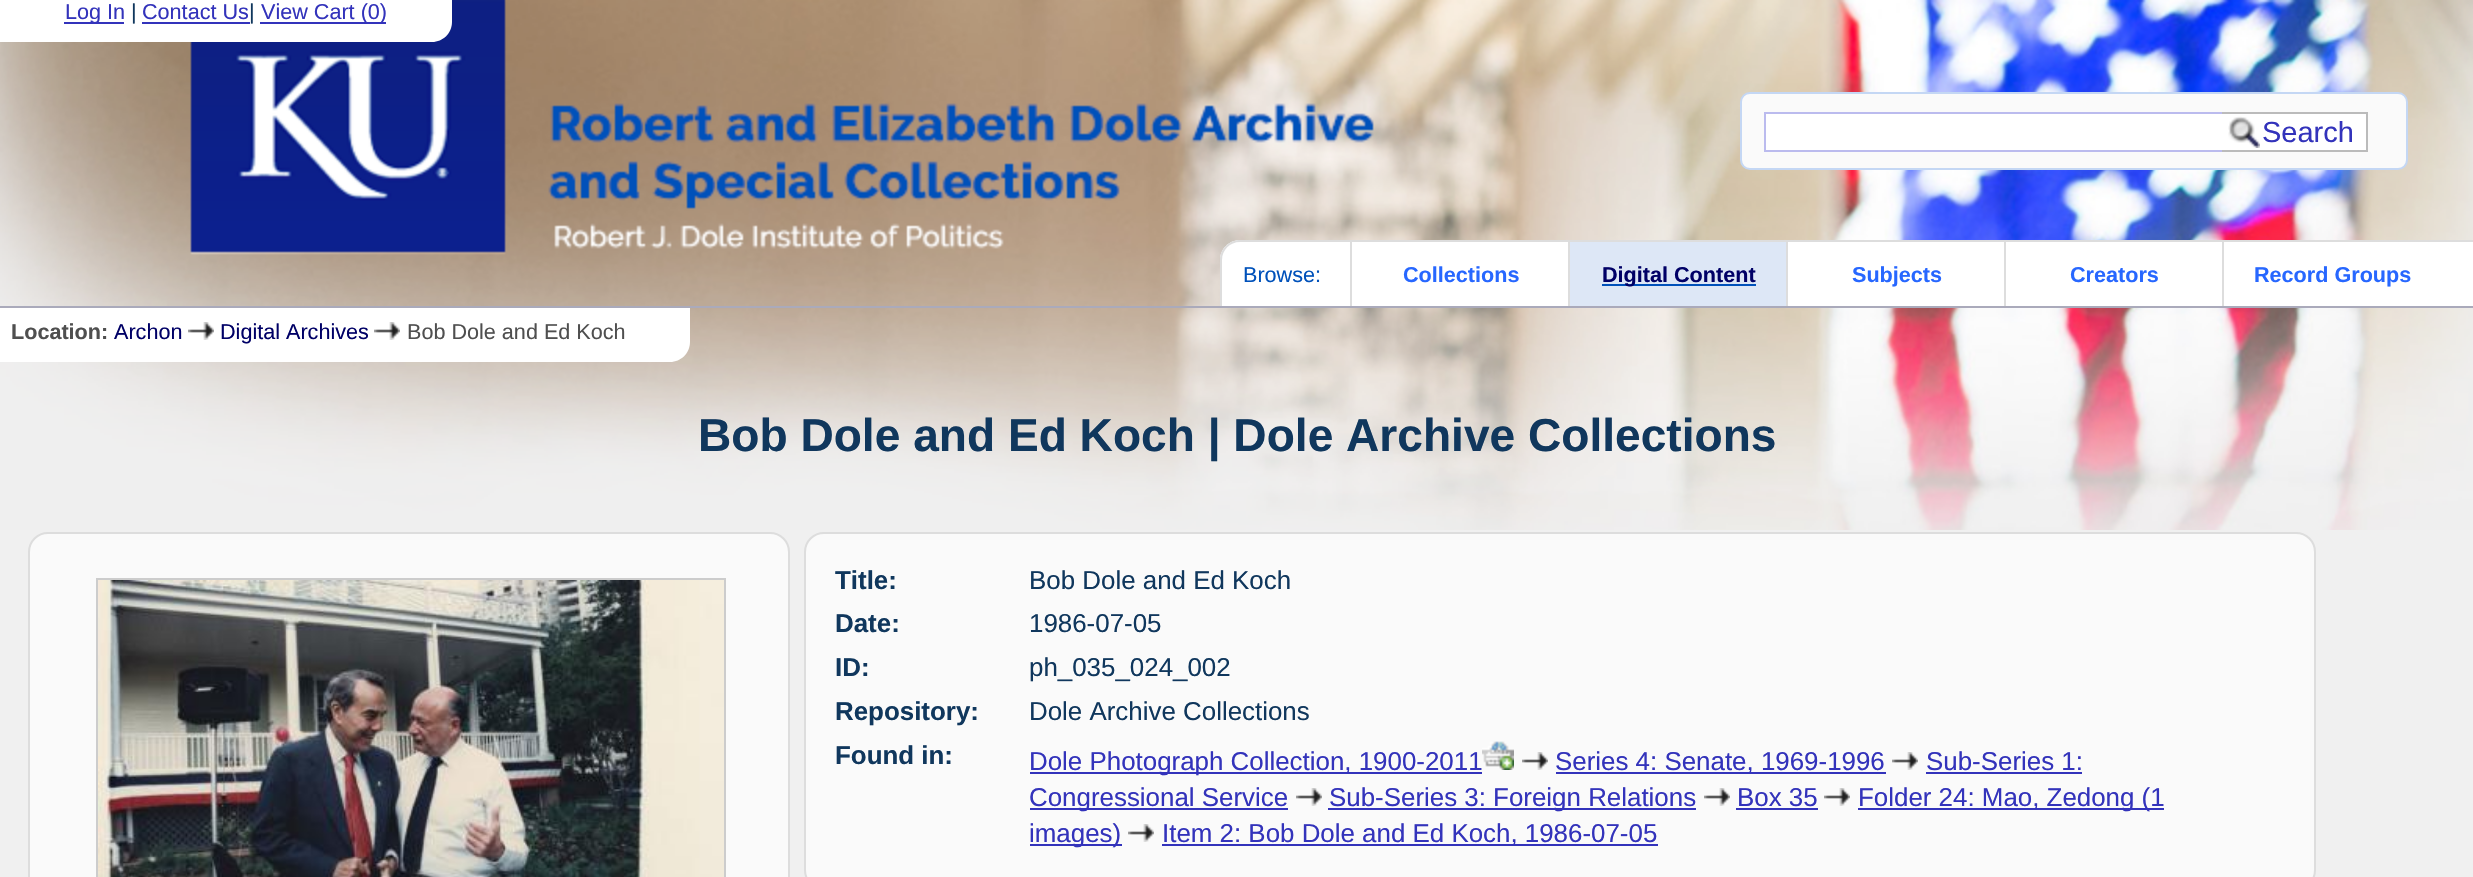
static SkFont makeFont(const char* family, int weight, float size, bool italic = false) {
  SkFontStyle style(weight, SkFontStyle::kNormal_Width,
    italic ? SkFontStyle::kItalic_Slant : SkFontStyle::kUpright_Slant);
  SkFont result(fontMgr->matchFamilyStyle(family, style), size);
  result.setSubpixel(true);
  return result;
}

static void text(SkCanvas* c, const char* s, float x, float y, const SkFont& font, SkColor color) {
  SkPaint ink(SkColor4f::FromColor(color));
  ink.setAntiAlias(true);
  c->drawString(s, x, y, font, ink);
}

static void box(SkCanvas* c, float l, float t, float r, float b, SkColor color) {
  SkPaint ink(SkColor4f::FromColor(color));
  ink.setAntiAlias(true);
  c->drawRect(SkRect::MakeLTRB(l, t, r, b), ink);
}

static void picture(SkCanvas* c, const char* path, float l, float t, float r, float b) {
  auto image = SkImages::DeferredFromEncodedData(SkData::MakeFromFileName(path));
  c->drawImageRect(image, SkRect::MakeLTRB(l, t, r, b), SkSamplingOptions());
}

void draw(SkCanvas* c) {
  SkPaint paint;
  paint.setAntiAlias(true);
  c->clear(0xfff0f0f0);
  picture(c, "img_01.png", 0, 0, 2473, 530);
  box(c, 0, 306, 2473, 308, 0xffaaaabb);
  paint.setColor(0xffffffff);
  c->drawPath(SkPathBuilder().moveTo(0, 0).lineTo(452, 0).lineTo(452, 22).cubicTo(452, 33, 443, 42, 432, 42).lineTo(0, 42).close().detach(), paint);
  box(c, 64, 22, 124, 24, 0xff3333bb);
  SkFont face1 = makeFont("Liberation Sans", 400, 21.6f);
  text(c, "Log In", 65, 19, face1, 0xff3333bb);
  text(c, "|", 131, 19, face1, 0xff10375d);
  text(c, "Contact Us", 142, 19, face1, 0xff3333bb);
  box(c, 142, 22, 250, 24, 0xff3333bb);
  text(c, "|", 249, 19, face1, 0xff10375d);
  box(c, 260, 22, 386, 24, 0xff3333bb);
  text(c, "View Cart (0)", 261, 19, face1, 0xff3333bb);
  paint.setColor(0xfffafafa);
  c->drawRoundRect(SkRect::MakeLTRB(1741, 93, 2407, 169), 9, 9, paint);
  paint.setStyle(SkPaint::kStroke_Style);
  paint.setStrokeWidth(2);
  paint.setColor(0xffc4d7f4);
  c->drawRoundRect(SkRect::MakeLTRB(1741, 93, 2407, 169), 9, 9, paint);
  box(c, 1766, 114, 2222, 150, 0xffffffff);
  paint.setColor(0xffbbbbee);
  c->drawRect(SkRect::MakeLTRB(1765, 113, 2229, 151), paint);
  box(c, 2222, 114, 2366, 150, 0xffffffff);
  picture(c, "img_02.png", 2228, 116, 2260, 148);
  box(c, 2222, 112, 2368, 114, 0xffbbbbbb);
  box(c, 2366, 112, 2368, 152, 0xffbbbbbb);
  box(c, 2222, 150, 2368, 152, 0xffbbbbbb);
  SkFont face2 = makeFont("Liberation Sans", 400, 29);
  text(c, "Search", 2262, 142, face2, 0xff3333bb);
  paint.setStyle(SkPaint::kFill_Style);
  paint.setColor(0xffffffff);
  c->drawPath(SkPathBuilder().moveTo(1240, 240).lineTo(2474, 240).lineTo(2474, 306).lineTo(1220, 306).lineTo(1220, 260).cubicTo(1220, 249, 1229, 240, 1240, 240).close().detach(), paint);
  paint.setColor(0xffdddddd);
  c->drawPath(SkPathBuilder(SkPathFillType::kEvenOdd).moveTo(1240, 240).lineTo(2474, 240).lineTo(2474, 306).lineTo(1220, 306).lineTo(1220, 260).cubicTo(1220, 249, 1229, 240, 1240, 240).close().moveTo(1240, 242).lineTo(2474, 242).lineTo(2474, 306).lineTo(1222, 306).lineTo(1222, 260).cubicTo(1222, 250, 1230, 242, 1240, 242).close().detach(), paint);
  text(c, "Browse:", 1243, 282, face1, 0xff0051ba);
  box(c, 1350, 242, 1352, 306, 0xffdddddd);
  SkFont face3 = makeFont("Liberation Sans", 700, 21.6f);
  text(c, "Collections", 1403, 282, face3, 0xff2767ff);
  box(c, 1570, 242, 1786, 306, 0xffdde7f6);
  box(c, 1568, 242, 1570, 306, 0xffdddddd);
  box(c, 1602, 284, 1756, 286, 0xff0051ba);
  text(c, "Digital Content", 1602, 282, face3, 0xff000066);
  box(c, 1786, 242, 1788, 306, 0xffdddddd);
  text(c, "Subjects", 1852, 282, face3, 0xff2767ff);
  box(c, 2004, 242, 2006, 306, 0xffdddddd);
  text(c, "Creators", 2070, 282, face3, 0xff2767ff);
  box(c, 2222, 242, 2224, 306, 0xffdddddd);
  text(c, "Record Groups", 2254, 282, face3, 0xff2767ff);
  paint.setColor(0xffffffff);
  c->drawPath(SkPathBuilder().moveTo(0, 308).lineTo(690, 308).lineTo(690, 342).cubicTo(690, 353, 681, 362, 670, 362).lineTo(0, 362).close().detach(), paint);
  text(c, "Location:", 11, 339, face3, 0xff4f4f4f);
  text(c, "Archon", 114, 339, face1, 0xff000066);
  picture(c, "img_03.png", 188, 322, 214, 340);
  text(c, "Digital Archives", 220, 339, face1, 0xff000066);
  picture(c, "img_03.png", 374, 322, 400, 340);
  text(c, "Bob Dole and Ed Koch", 407, 339, face1, 0xff4f4f4f);
  SkFont face4 = makeFont("Liberation Sans", 700, 46.1f);
  text(c, "Bob Dole and Ed Koch | Dole Archive Collections", 698, 451, face4, 0xff10375d);
  paint.setColor(0xfffafafa);
  c->drawRoundRect(SkRect::MakeLTRB(29, 533, 789, 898), 19, 19, paint);
  paint.setStyle(SkPaint::kStroke_Style);
  paint.setColor(0xffdddddd);
  c->drawRoundRect(SkRect::MakeLTRB(29, 533, 789, 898), 19, 19, paint);
  paint.setColor(0xffcccccc);
  c->drawRect(SkRect::MakeLTRB(97, 579, 725, 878), paint);
  picture(c, "img_04.png", 98, 580, 724, 877);
  paint.setStyle(SkPaint::kFill_Style);
  paint.setColor(0xfffafafa);
  c->drawRoundRect(SkRect::MakeLTRB(805, 533, 2315, 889), 19, 19, paint);
  paint.setStyle(SkPaint::kStroke_Style);
  paint.setColor(0xffdddddd);
  c->drawRoundRect(SkRect::MakeLTRB(805, 533, 2315, 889), 19, 19, paint);
  SkFont face5 = makeFont("Liberation Sans", 700, 25.9f);
  text(c, "Title:", 835, 589, face5, 0xff10375d);
  SkFont face6 = makeFont("Liberation Sans", 400, 25.9f);
  text(c, "Bob Dole and Ed Koch", 1029, 589, face6, 0xff10375d);
  text(c, "Date:", 835, 632, face5, 0xff10375d);
  text(c, "1986-07-05", 1029, 632, face6, 0xff10375d);
  text(c, "ID:", 835, 676, face5, 0xff10375d);
  text(c, "ph_035_024_002", 1029, 676, face6, 0xff10375d);
  text(c, "Repository:", 835, 720, face5, 0xff10375d);
  text(c, "Dole Archive Collections", 1029, 720, face6, 0xff10375d);
  text(c, "Found in:", 835, 764, face5, 0xff10375d);
  box(c, 1030, 772, 1482, 774, 0xff3333bb);
  text(c, "Dole Photograph Collection, 1900-2011", 1029, 770, face6, 0xff3333bb);
  picture(c, "img_05.png", 1482, 741, 1514, 770);
  picture(c, "img_06.png", 1522, 752, 1548, 770);
  box(c, 1556, 772, 1886, 774, 0xff3333bb);
  text(c, "Series 4: Senate, 1969-1996", 1555, 770, face6, 0xff3333bb);
  picture(c, "img_06.png", 1892, 752, 1918, 770);
  text(c, "Sub-Series 1:", 1926, 770, face6, 0xff3333bb);
  box(c, 1926, 772, 2082, 774, 0xff3333bb);
  box(c, 1030, 808, 1288, 810, 0xff3333bb);
  text(c, "Congressional Service", 1029, 806, face6, 0xff3333bb);
  picture(c, "img_06.png", 1296, 788, 1322, 806);
  box(c, 1328, 808, 1696, 810, 0xff3333bb);
  text(c, "Sub-Series 3: Foreign Relations", 1329, 806, face6, 0xff3333bb);
  picture(c, "img_06.png", 1704, 788, 1730, 806);
  text(c, "Box 35", 1737, 806, face6, 0xff3333bb);
  box(c, 1736, 808, 1818, 810, 0xff3333bb);
  picture(c, "img_06.png", 1824, 788, 1850, 806);
  box(c, 1858, 808, 2164, 810, 0xff3333bb);
  text(c, "Folder 24: Mao, Zedong (1", 1858, 806, face6, 0xff3333bb);
  box(c, 1030, 844, 1122, 846, 0xff3333bb);
  text(c, "images)", 1029, 842, face6, 0xff3333bb);
  picture(c, "img_06.png", 1128, 824, 1154, 842);
  box(c, 1162, 844, 1658, 846, 0xff3333bb);
  text(c, "Item 2: Bob Dole and Ed Koch, 1986-07-05", 1162, 842, face6, 0xff3333bb);
}
